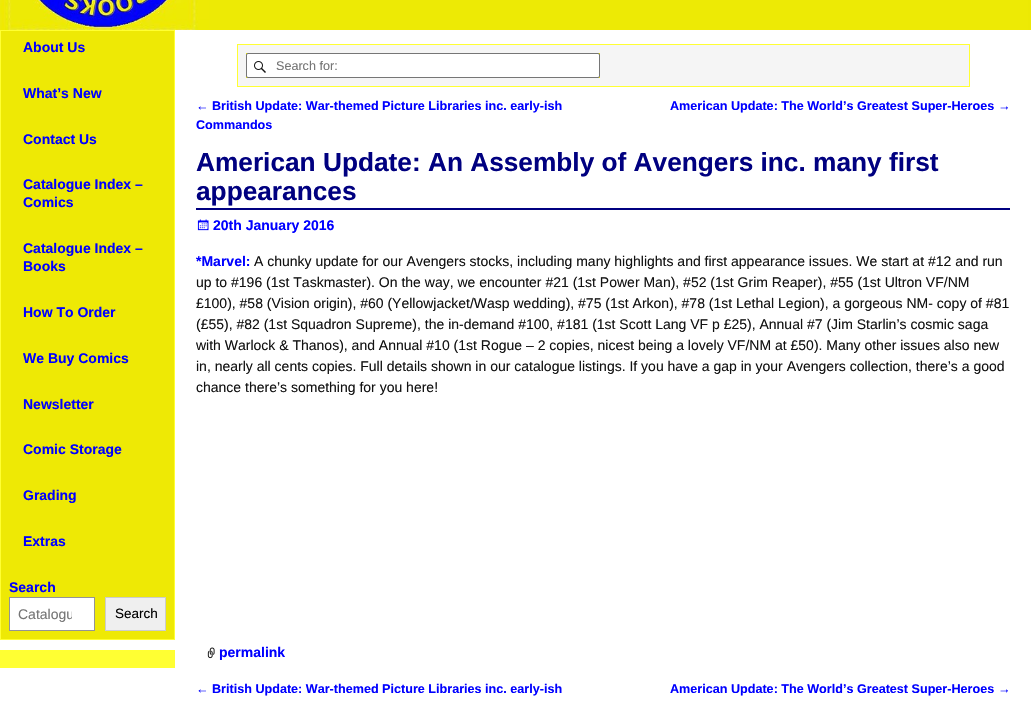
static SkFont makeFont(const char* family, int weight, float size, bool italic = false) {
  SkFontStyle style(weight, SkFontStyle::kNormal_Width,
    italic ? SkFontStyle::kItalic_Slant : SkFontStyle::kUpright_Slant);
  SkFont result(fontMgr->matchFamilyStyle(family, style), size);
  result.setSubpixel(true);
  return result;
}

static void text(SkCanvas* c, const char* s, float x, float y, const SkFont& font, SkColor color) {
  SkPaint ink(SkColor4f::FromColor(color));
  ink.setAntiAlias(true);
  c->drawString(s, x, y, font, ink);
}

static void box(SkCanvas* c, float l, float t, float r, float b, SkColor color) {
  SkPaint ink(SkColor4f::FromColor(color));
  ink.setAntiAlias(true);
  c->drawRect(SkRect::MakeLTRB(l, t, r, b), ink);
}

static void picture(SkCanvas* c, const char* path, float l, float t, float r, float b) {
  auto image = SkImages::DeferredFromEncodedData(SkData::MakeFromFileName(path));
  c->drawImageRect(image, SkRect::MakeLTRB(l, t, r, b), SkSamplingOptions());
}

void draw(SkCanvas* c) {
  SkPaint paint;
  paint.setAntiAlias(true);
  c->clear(0xffffffff);
  picture(c, "img_01.png", 0, 0, 1031, 30);
  paint.setColor(0xffeee905);
  c->drawRect(SkRect::MakeLTRB(0.5f, 30.5f, 174.5f, 639.5f), paint);
  paint.setStyle(SkPaint::kStroke_Style);
  paint.setStrokeWidth(1);
  paint.setColor(0xffffff33);
  c->drawRect(SkRect::MakeLTRB(0.5f, 30.5f, 174.5f, 639.5f), paint);
  SkFont face1 = makeFont("Liberation Sans", 700, 14);
  text(c, "About Us", 23, 52, face1, 0xff0000ff);
  text(c, "What’s New", 23, 98, face1, 0xff0000ff);
  text(c, "Contact Us", 23, 144, face1, 0xff0000ff);
  text(c, "Catalogue Index –", 23, 189, face1, 0xff0000ff);
  text(c, "Comics", 23, 207, face1, 0xff0000ff);
  text(c, "Catalogue Index –", 23, 253, face1, 0xff0000ff);
  text(c, "Books", 23, 271, face1, 0xff0000ff);
  text(c, "How To Order", 23, 317, face1, 0xff0000ff);
  text(c, "We Buy Comics", 23, 363, face1, 0xff0000ff);
  text(c, "Newsletter", 23, 409, face1, 0xff0000ff);
  text(c, "Comic Storage", 23, 454, face1, 0xff0000ff);
  text(c, "Grading", 23, 500, face1, 0xff0000ff);
  text(c, "Extras", 23, 546, face1, 0xff0000ff);
  text(c, "Search", 9, 592, face1, 0xff0000ff);
  paint.setStyle(SkPaint::kFill_Style);
  paint.setColor(0xffffffff);
  c->drawRect(SkRect::MakeLTRB(9.5f, 597.5f, 94.5f, 630.5f), paint);
  paint.setStyle(SkPaint::kStroke_Style);
  paint.setColor(0xff949494);
  c->drawRect(SkRect::MakeLTRB(9.5f, 597.5f, 94.5f, 630.5f), paint);
  c->save();
  c->clipRect(SkRect::MakeLTRB(18, 606, 72, 622));
  SkFont face2 = makeFont("Liberation Sans", 400, 14);
  text(c, "Catalogu", 18, 619, face2, 0xff757575);
  c->restore();
  paint.setStyle(SkPaint::kFill_Style);
  paint.setColor(0xffefefef);
  c->drawRect(SkRect::MakeLTRB(105.5f, 597.5f, 165.5f, 630.5f), paint);
  paint.setStyle(SkPaint::kStroke_Style);
  paint.setColor(0xffcccccc);
  c->drawRect(SkRect::MakeLTRB(105.5f, 597.5f, 165.5f, 630.5f), paint);
  SkFont face3 = makeFont("Liberation Sans", 400, 13.5f);
  text(c, "Search", 115, 618, face3, 0xff000000);
  box(c, 0, 650, 175, 668, 0xffffff33);
  paint.setStyle(SkPaint::kFill_Style);
  paint.setColor(0xfff5f5f5);
  c->drawRect(SkRect::MakeLTRB(237.5f, 44.5f, 969.5f, 86.5f), paint);
  paint.setStyle(SkPaint::kStroke_Style);
  paint.setColor(0xffffff33);
  c->drawRect(SkRect::MakeLTRB(237.5f, 44.5f, 969.5f, 86.5f), paint);
  box(c, 246, 53, 600, 78, 0xffeee905);
  paint.setStyle(SkPaint::kFill_Style);
  paint.setColor(0xffffffff);
  c->drawRoundRect(SkRect::MakeLTRB(246.5f, 53.5f, 599.5f, 77.5f), 1.5f, 1.5f, paint);
  paint.setStyle(SkPaint::kStroke_Style);
  paint.setColor(0xff767676);
  c->drawRoundRect(SkRect::MakeLTRB(246.5f, 53.5f, 599.5f, 77.5f), 1.5f, 1.5f, paint);
  picture(c, "img_02.png", 254, 61, 266, 73);
  SkFont face4 = makeFont("Liberation Sans", 400, 12.6f);
  text(c, "Search for:", 276, 70, face4, 0xff757575);
  text(c, "←", 196, 110, face4, 0xff0000ff);
  SkFont face5 = makeFont("Liberation Sans", 700, 12.6f);
  text(c, "British Update: War-themed Picture Libraries inc. early-ish", 212, 110, face5, 0xff0000ff);
  text(c, "Commandos", 196, 129, face5, 0xff0000ff);
  text(c, "American Update: The World’s Greatest Super-Heroes", 670, 110, face5, 0xff0000ff);
  text(c, "→", 998, 110, face4, 0xff0000ff);
  box(c, 196, 208, 1010, 210, 0xff000080);
  SkFont face6 = makeFont("Liberation Sans", 700, 26.25f);
  text(c, "American Update: An Assembly of Avengers inc. many first", 196, 171, face6, 0xff000080);
  text(c, "appearances", 196, 200, face6, 0xff000080);
  picture(c, "img_03.png", 197, 219, 209, 231);
  text(c, "20th January 2016", 213, 230, face1, 0xff0000ff);
  text(c, "*Marvel:", 196, 266, face1, 0xff0000ff);
  text(c, "A chunky update for our Avengers stocks, including many highlights and first appearance issues. We start at #12 and run", 254, 266, face2, 0xff121212);
  text(c, "up to #196 (1st Taskmaster). On the way, we encounter #21 (1st Power Man), #52 (1st Grim Reaper), #55 (1st Ultron VF/NM", 196, 287, face2, 0xff121212);
  text(c, "£100), #58 (Vision origin), #60 (Yellowjacket/Wasp wedding), #75 (1st Arkon), #78 (1st Lethal Legion), a gorgeous NM- copy of #81", 196, 308, face2, 0xff121212);
  text(c, "(£55), #82 (1st Squadron Supreme), the in-demand #100, #181 (1st Scott Lang VF p £25), Annual #7 (Jim Starlin’s cosmic saga", 196, 329, face2, 0xff121212);
  text(c, "with Warlock & Thanos), and Annual #10 (1st Rogue – 2 copies, nicest being a lovely VF/NM at £50). Many other issues also new", 196, 350, face2, 0xff121212);
  text(c, "in, nearly all cents copies. Full details shown in our catalogue listings. If you have a gap in your Avengers collection, there’s a good", 196, 371, face2, 0xff121212);
  text(c, "chance there’s something for you here!", 196, 392, face2, 0xff121212);
  picture(c, "img_04.png", 207, 647, 215, 659);
  text(c, "permalink", 219, 657, face1, 0xff0000ff);
  text(c, "←", 196, 693, face4, 0xff0000ff);
  text(c, "British Update: War-themed Picture Libraries inc. early-ish", 212, 693, face5, 0xff0000ff);
  text(c, "American Update: The World’s Greatest Super-Heroes", 670, 693, face5, 0xff0000ff);
  text(c, "→", 998, 693, face4, 0xff0000ff);
}
